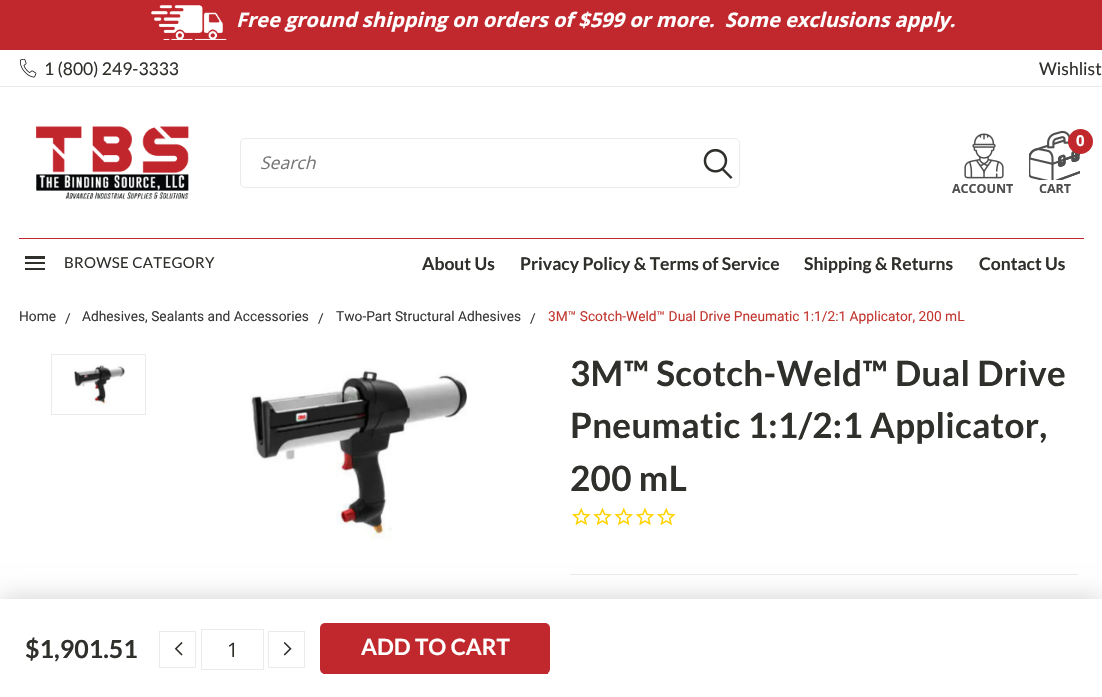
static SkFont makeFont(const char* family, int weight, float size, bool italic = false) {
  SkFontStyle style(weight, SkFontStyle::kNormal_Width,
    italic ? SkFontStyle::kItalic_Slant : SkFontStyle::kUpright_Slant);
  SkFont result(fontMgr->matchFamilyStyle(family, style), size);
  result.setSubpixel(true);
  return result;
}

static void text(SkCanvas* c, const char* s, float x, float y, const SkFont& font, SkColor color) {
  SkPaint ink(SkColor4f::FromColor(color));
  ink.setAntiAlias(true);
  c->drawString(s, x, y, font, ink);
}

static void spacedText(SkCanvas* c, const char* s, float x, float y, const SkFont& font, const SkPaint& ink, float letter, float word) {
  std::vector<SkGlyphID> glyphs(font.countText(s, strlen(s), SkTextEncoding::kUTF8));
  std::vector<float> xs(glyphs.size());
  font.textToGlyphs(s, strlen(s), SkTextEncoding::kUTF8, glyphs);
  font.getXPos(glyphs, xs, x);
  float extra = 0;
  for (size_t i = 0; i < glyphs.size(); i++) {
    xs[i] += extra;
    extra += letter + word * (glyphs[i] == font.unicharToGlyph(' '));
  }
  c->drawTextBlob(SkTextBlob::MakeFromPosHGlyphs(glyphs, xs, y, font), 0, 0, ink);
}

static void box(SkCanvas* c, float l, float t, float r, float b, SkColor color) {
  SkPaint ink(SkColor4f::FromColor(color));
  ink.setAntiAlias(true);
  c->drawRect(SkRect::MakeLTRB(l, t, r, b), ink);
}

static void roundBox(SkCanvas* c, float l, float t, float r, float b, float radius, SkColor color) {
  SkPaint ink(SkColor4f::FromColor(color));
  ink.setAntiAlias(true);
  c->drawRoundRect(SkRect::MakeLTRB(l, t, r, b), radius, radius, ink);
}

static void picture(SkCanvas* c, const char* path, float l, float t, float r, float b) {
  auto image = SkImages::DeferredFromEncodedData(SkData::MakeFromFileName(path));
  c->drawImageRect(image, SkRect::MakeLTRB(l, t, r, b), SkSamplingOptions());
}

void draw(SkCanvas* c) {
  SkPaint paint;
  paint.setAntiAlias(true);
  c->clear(0xffffffff);
  box(c, 0, 0, 1102, 50, 0xffc1282d);
  picture(c, "img_01.png", 151, 5, 227, 40);
  SkFont face1 = makeFont("Open Sans", 700, 20, true);
  text(c, "Free ground shipping on orders of $599 or more.  Some exclusions apply.", 236, 27, face1, 0xffffffff);
  box(c, 0, 86, 1102, 87, 0xffebebeb);
  picture(c, "img_02.png", 19, 59, 37, 78);
  SkFont face2 = makeFont("Lato", 400, 17.5f);
  text(c, "1 (800) 249-3333", 44, 75, face2, 0xff2f2f2b);
  text(c, "Wishlist", 1039, 75, face2, 0xff2f2f2b);
  picture(c, "img_03.png", 36, 126, 189, 200);
  paint.setStyle(SkPaint::kStroke_Style);
  paint.setStrokeWidth(1);
  paint.setColor(0xffebebeb);
  c->drawRoundRect(SkRect::MakeLTRB(240.5f, 138.5f, 739.5f, 187.5f), 4.5f, 4.5f, paint);
  SkFont face3 = makeFont("Open Sans", 400, 17.5f, true);
  text(c, "Search", 260, 169, face3, 0xff767676);
  picture(c, "img_04.png", 703, 148, 733, 179);
  picture(c, "img_05.png", 964, 133, 1004, 179);
  SkFont face4 = makeFont("Open Sans", 700, 12.5f);
  text(c, "ACCOUNT", 952, 193, face4, 0xff4f4f4f);
  picture(c, "img_06.png", 1029, 130, 1080, 180);
  paint.setStyle(SkPaint::kFill_Style);
  paint.setColor(0xffc1282d);
  c->drawCircle(1080.5f, 141.5f, 12.5f, paint);
  SkFont face5 = makeFont("Open Sans", 700, 15);
  text(c, "0", 1076, 146, face5, 0xffffffff);
  text(c, "CART", 1039, 193, face4, 0xff4f4f4f);
  box(c, 19, 238, 1084, 239, 0xffc0282d);
  box(c, 25, 256, 45, 259, 0xff2f2f2b);
  box(c, 25, 262, 45, 264, 0xff2f2f2b);
  box(c, 25, 268, 45, 270, 0xff2f2f2b);
  SkFont face6 = makeFont("Lato", 400, 15);
  paint.setColor(0xff2f2f2b);
  spacedText(c, "BROWSE CATEGORY", 64, 268, face6, paint, 0.3f, 0);
  SkFont face7 = makeFont("Lato", 700, 17.5f);
  text(c, "About Us", 422, 270, face7, 0xff2f2f2b);
  text(c, "Privacy Policy & Terms of Service", 520, 270, face7, 0xff2f2f2b);
  text(c, "Shipping & Returns", 804, 270, face7, 0xff2f2f2b);
  text(c, "Contact Us", 979, 270, face7, 0xff2f2f2b);
  SkFont face8 = makeFont("Roboto", 400, 13.75f);
  text(c, "Home", 19, 321, face8, 0xff393939);
  text(c, "/", 65, 323, face8, 0xff393939);
  text(c, "Adhesives, Sealants and Accessories", 82, 321, face8, 0xff393939);
  text(c, "/", 318, 323, face8, 0xff393939);
  text(c, "Two-Part Structural Adhesives", 336, 321, face8, 0xff393939);
  text(c, "/", 530, 323, face8, 0xff393939);
  text(c, "3M™ Scotch-Weld™ Dual Drive Pneumatic 1:1/2:1 Applicator, 200 mL", 548, 321, face8, 0xffc23831);
  paint.setStyle(SkPaint::kStroke_Style);
  paint.setColor(0xffebebeb);
  c->drawRect(SkRect::MakeLTRB(51.5f, 354.5f, 145.5f, 414.5f), paint);
  picture(c, "img_07.png", 74, 364, 125, 406);
  picture(c, "img_08.png", 250, 368, 467, 541);
  SkFont face9 = makeFont("Lato", 700, 35);
  paint.setStyle(SkPaint::kFill_Style);
  paint.setColor(0xff2f2f2b);
  spacedText(c, "3M™ Scotch-Weld™ Dual Drive", 570, 386, face9, paint, 0.3f, 0);
  spacedText(c, "Pneumatic 1:1/2:1 Applicator,", 570, 438, face9, paint, 0.3f, 0);
  spacedText(c, "200 mL", 570, 491, face9, paint, 0.3f, 0);
  picture(c, "img_09.png", 572, 507, 591, 526);
  picture(c, "img_10.png", 593, 507, 612, 526);
  picture(c, "img_11.png", 614, 507, 633, 526);
  picture(c, "img_12.png", 635, 507, 655, 526);
  picture(c, "img_09.png", 657, 507, 676, 526);
  box(c, 570, 574, 1078, 575, 0xffebebeb);
  paint.setColor(0xffd0d0d0);
  paint.setMaskFilter(SkMaskFilter::MakeBlur(kNormal_SkBlurStyle, 12.5f));
  c->drawRect(SkRect::MakeLTRB(0, 599, 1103, 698), paint);
  paint.setMaskFilter(nullptr);
  box(c, 0, 599, 1102, 697, 0xffffffff);
  SkFont face10 = makeFont("Lato", 700, 25);
  text(c, "$1,901.51", 25, 658, face10, 0xff2f2f2b);
  paint.setStyle(SkPaint::kStroke_Style);
  paint.setColor(0xffebebeb);
  c->drawRect(SkRect::MakeLTRB(159.5f, 631.5f, 195.5f, 667.5f), paint);
  picture(c, "img_13.png", 174, 642, 183, 656);
  c->drawRect(SkRect::MakeLTRB(201.5f, 629.5f, 263.5f, 669.5f), paint);
  SkFont face11 = makeFont("Open Sans", 400, 20);
  text(c, "1", 227, 657, face11, 0xff2f2f2b);
  c->drawRect(SkRect::MakeLTRB(268.5f, 631.5f, 304.5f, 667.5f), paint);
  picture(c, "img_14.png", 283, 642, 292, 656);
  roundBox(c, 320, 623, 550, 674, 5, 0xffc1282d);
  box(c, 323, 673, 548, 674, 0xffc1282d);
  SkFont face12 = makeFont("Lato", 700, 22.5f);
  text(c, "ADD TO CART", 361, 655, face12, 0xffffffff);
}
